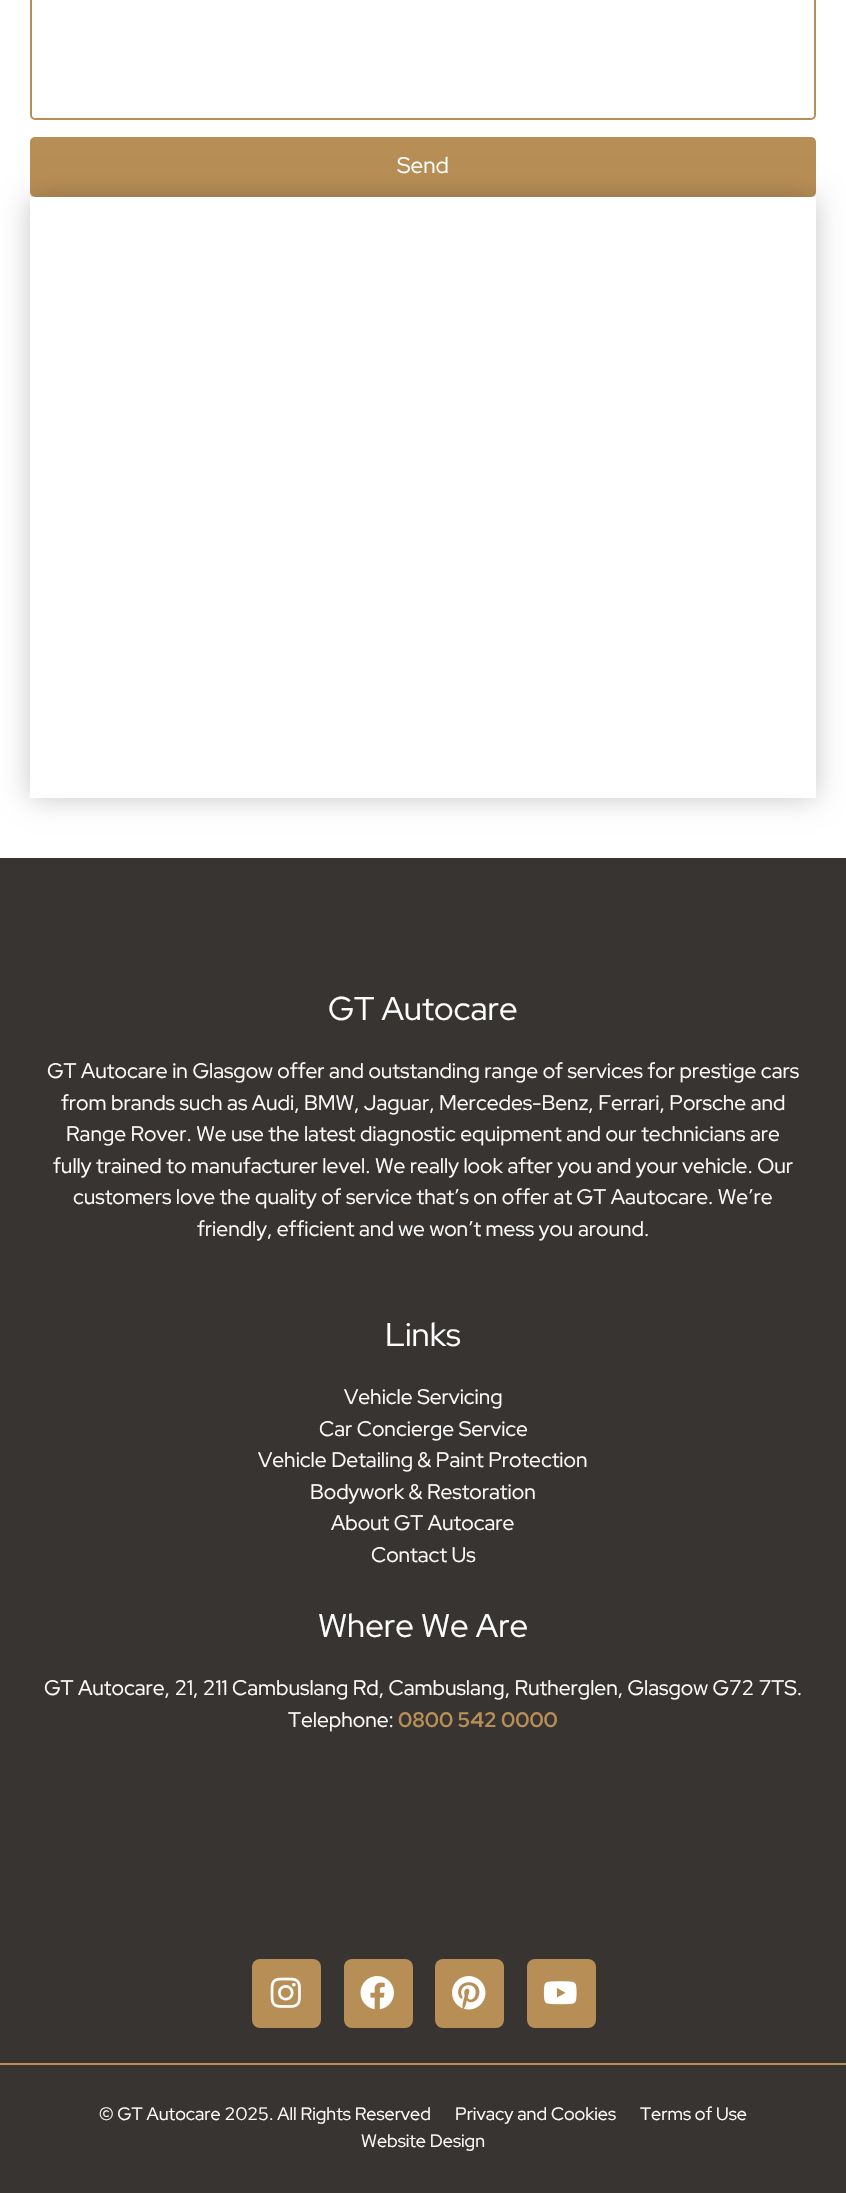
static SkFont makeFont(const char* family, int weight, float size, bool italic = false) {
  SkFontStyle style(weight, SkFontStyle::kNormal_Width,
    italic ? SkFontStyle::kItalic_Slant : SkFontStyle::kUpright_Slant);
  SkFont result(fontMgr->matchFamilyStyle(family, style), size);
  result.setSubpixel(true);
  return result;
}

static void text(SkCanvas* c, const char* s, float x, float y, const SkFont& font, SkColor color) {
  SkPaint ink(SkColor4f::FromColor(color));
  ink.setAntiAlias(true);
  c->drawString(s, x, y, font, ink);
}

static void box(SkCanvas* c, float l, float t, float r, float b, SkColor color) {
  SkPaint ink(SkColor4f::FromColor(color));
  ink.setAntiAlias(true);
  c->drawRect(SkRect::MakeLTRB(l, t, r, b), ink);
}

static void roundBox(SkCanvas* c, float l, float t, float r, float b, float radius, SkColor color) {
  SkPaint ink(SkColor4f::FromColor(color));
  ink.setAntiAlias(true);
  c->drawRoundRect(SkRect::MakeLTRB(l, t, r, b), radius, radius, ink);
}

static void picture(SkCanvas* c, const char* path, float l, float t, float r, float b) {
  auto image = SkImages::DeferredFromEncodedData(SkData::MakeFromFileName(path));
  c->drawImageRect(image, SkRect::MakeLTRB(l, t, r, b), SkSamplingOptions());
}

void draw(SkCanvas* c) {
  SkPaint paint;
  paint.setAntiAlias(true);
  c->clear(0xffffffff);
  paint.setStyle(SkPaint::kStroke_Style);
  paint.setStrokeWidth(2);
  paint.setColor(0xffb78e55);
  c->drawRoundRect(SkRect::MakeLTRB(31, -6, 815, 119), 4, 4, paint);
  roundBox(c, 30, 137, 816, 197, 5, 0xffb78e55);
  SkFont face1 = makeFont("Red Hat Display", 400, 22.5f);
  text(c, "Send", 397, 173, face1, 0xffffffff);
  c->save();
  c->clipPath(SkPathBuilder(SkPathFillType::kEvenOdd).moveTo(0, 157).lineTo(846, 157).lineTo(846, 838).lineTo(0, 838).close().moveTo(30, 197).lineTo(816, 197).lineTo(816, 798).lineTo(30, 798).close().detach(), true);
  paint.setStyle(SkPaint::kFill_Style);
  paint.setColor(0x38000000);
  paint.setMaskFilter(SkMaskFilter::MakeBlur(kNormal_SkBlurStyle, 13));
  c->drawRect(SkRect::MakeLTRB(30, 197, 816, 798), paint);
  paint.setMaskFilter(nullptr);
  c->restore();
  box(c, 0, 858, 846, 2063, 0xff373432);
  SkFont face2 = makeFont("Red Hat Display", 400, 33);
  text(c, "GT Autocare", 328, 1020, face2, 0xffffffff);
  SkFont face3 = makeFont("Red Hat Display", 400, 21);
  text(c, "GT Autocare in Glasgow offer and outstanding range of services for prestige cars", 47, 1078, face3, 0xffffffff);
  text(c, "from brands such as Audi, BMW, Jaguar, Mercedes-Benz, Ferrari, Porsche and", 61, 1110, face3, 0xffffffff);
  text(c, "Range Rover. We use the latest diagnostic equipment and our technicians are", 66, 1141, face3, 0xffffffff);
  text(c, "fully trained to manufacturer level. We really look after you and your vehicle. Our", 53, 1173, face3, 0xffffffff);
  text(c, "customers love the quality of service that’s on offer at GT Aautocare. We’re", 73, 1204, face3, 0xffffffff);
  text(c, "friendly, efficient and we won’t mess you around.", 197, 1236, face3, 0xffffffff);
  text(c, "Links", 385, 1346, face2, 0xffffffff);
  text(c, "Vehicle Servicing", 344, 1404, face3, 0xffffffff);
  text(c, "Car Concierge Service", 319, 1436, face3, 0xffffffff);
  text(c, "Vehicle Detailing & Paint Protection", 258, 1467, face3, 0xffffffff);
  text(c, "Bodywork & Restoration", 310, 1499, face3, 0xffffffff);
  text(c, "About GT Autocare", 331, 1530, face3, 0xffffffff);
  text(c, "Contact Us", 371, 1562, face3, 0xffffffff);
  text(c, "Where We Are", 318, 1637, face2, 0xffffffff);
  text(c, "GT Autocare, 21, 211 Cambuslang Rd, Cambuslang, Rutherglen, Glasgow G72 7TS.", 44, 1695, face3, 0xffffffff);
  text(c, "Telephone:", 288, 1727, face3, 0xffffffff);
  SkFont face4 = makeFont("Red Hat Display", 700, 21);
  text(c, "0800 542 0000", 398, 1727, face4, 0xffb78e55);
  roundBox(c, 252, 1959, 321, 2028, 8, 0xffb78e55);
  picture(c, "img_01.png", 270, 1977, 301, 2008);
  roundBox(c, 344, 1959, 413, 2028, 8, 0xffb78e55);
  picture(c, "img_02.png", 360, 1976, 394, 2010);
  roundBox(c, 435, 1959, 504, 2028, 8, 0xffb78e55);
  picture(c, "img_03.png", 452, 1976, 486, 2010);
  roundBox(c, 527, 1959, 596, 2028, 8, 0xffb78e55);
  picture(c, "img_04.png", 543, 1981, 577, 2005);
  box(c, 0, 2065, 846, 2193, 0xff373432);
  box(c, 0, 2063, 846, 2065, 0xffb78e55);
  SkFont face5 = makeFont("Red Hat Display", 400, 18);
  text(c, "© GT Autocare 2025. All Rights Reserved", 99, 2120, face5, 0xffffffff);
  text(c, "Privacy and Cookies", 455, 2120, face5, 0xffffffff);
  text(c, "Terms of Use", 640, 2120, face5, 0xffffffff);
  text(c, "Website Design", 361, 2147, face5, 0xffffffff);
}
